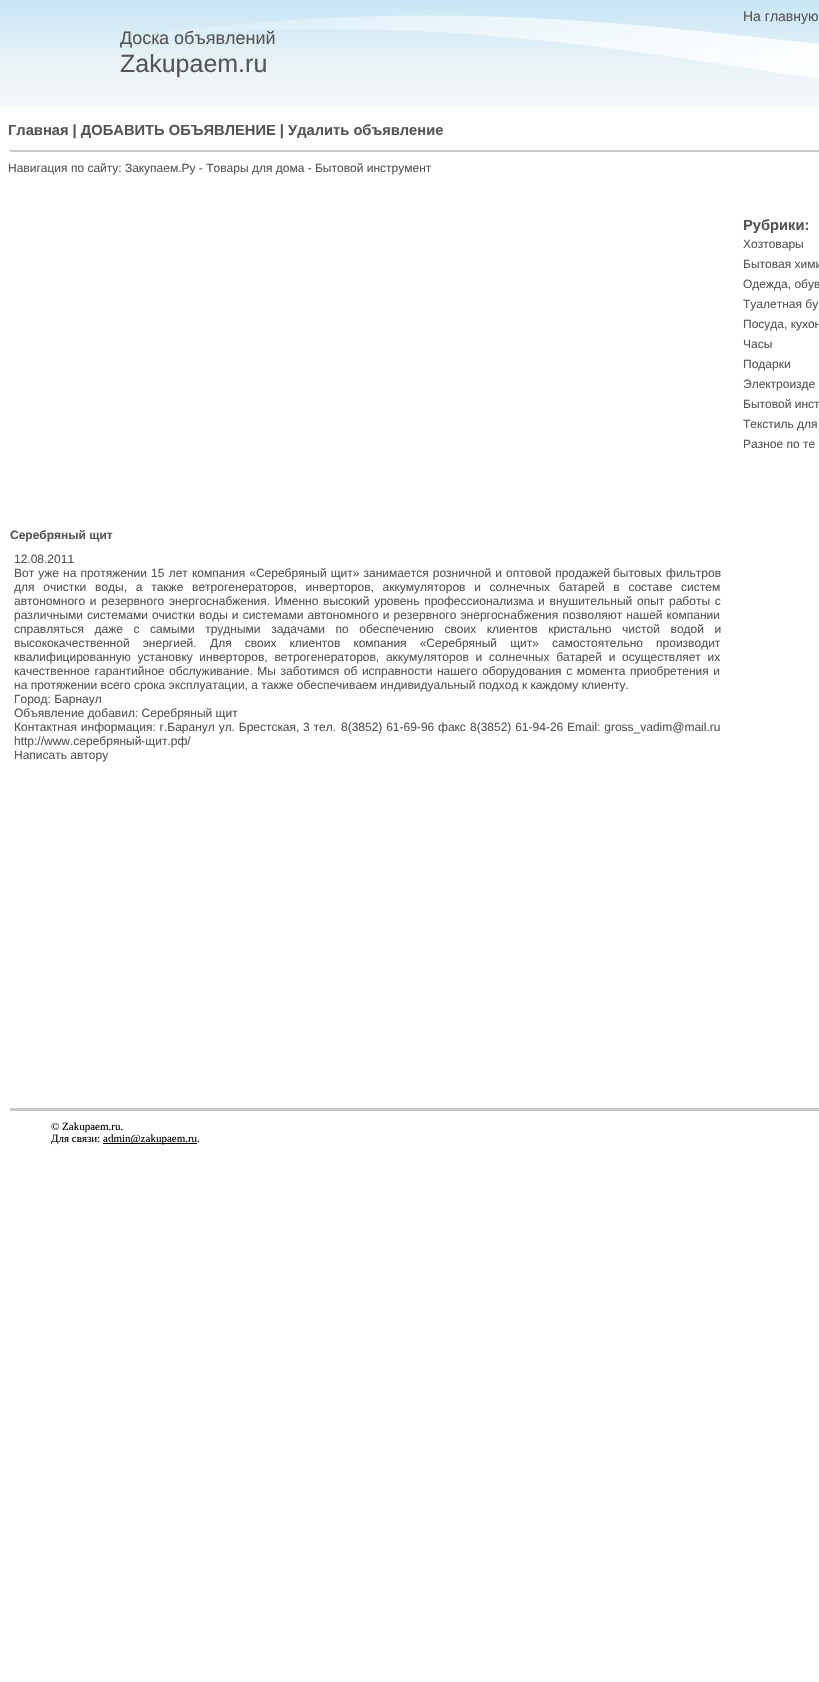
static SkFont makeFont(const char* family, int weight, float size, bool italic = false) {
  SkFontStyle style(weight, SkFontStyle::kNormal_Width,
    italic ? SkFontStyle::kItalic_Slant : SkFontStyle::kUpright_Slant);
  SkFont result(fontMgr->matchFamilyStyle(family, style), size);
  result.setSubpixel(true);
  return result;
}

static void text(SkCanvas* c, const char* s, float x, float y, const SkFont& font, SkColor color) {
  SkPaint ink(SkColor4f::FromColor(color));
  ink.setAntiAlias(true);
  c->drawString(s, x, y, font, ink);
}

static void spacedText(SkCanvas* c, const char* s, float x, float y, const SkFont& font, const SkPaint& ink, float letter, float word) {
  std::vector<SkGlyphID> glyphs(font.countText(s, strlen(s), SkTextEncoding::kUTF8));
  std::vector<float> xs(glyphs.size());
  font.textToGlyphs(s, strlen(s), SkTextEncoding::kUTF8, glyphs);
  font.getXPos(glyphs, xs, x);
  float extra = 0;
  for (size_t i = 0; i < glyphs.size(); i++) {
    xs[i] += extra;
    extra += letter + word * (glyphs[i] == font.unicharToGlyph(' '));
  }
  c->drawTextBlob(SkTextBlob::MakeFromPosHGlyphs(glyphs, xs, y, font), 0, 0, ink);
}

static void box(SkCanvas* c, float l, float t, float r, float b, SkColor color) {
  SkPaint ink(SkColor4f::FromColor(color));
  ink.setAntiAlias(true);
  c->drawRect(SkRect::MakeLTRB(l, t, r, b), ink);
}

static void picture(SkCanvas* c, const char* path, float l, float t, float r, float b) {
  auto image = SkImages::DeferredFromEncodedData(SkData::MakeFromFileName(path));
  c->drawImageRect(image, SkRect::MakeLTRB(l, t, r, b), SkSamplingOptions());
}

void draw(SkCanvas* c) {
  SkPaint paint;
  paint.setAntiAlias(true);
  c->clear(0xffffffff);
  picture(c, "img_01.png", 0, 0, 819, 109);
  picture(c, "img_02.png", 132, 15, 819, 79);
  SkFont face1 = makeFont("Liberation Sans", 400, 14);
  text(c, "На главную", 743, 21, face1, 0xff555555);
  SkFont face2 = makeFont("Liberation Sans", 400, 18);
  text(c, "Доска объявлений", 120, 44, face2, 0xff555555);
  SkFont face3 = makeFont("Liberation Sans", 400, 25);
  text(c, "Zakupaem.ru", 120, 72, face3, 0xff555555);
  SkFont face4 = makeFont("Liberation Sans", 700, 14.7f);
  text(c, "Главная | ДОБАВИТЬ ОБЪЯВЛЕНИЕ | Удалить объявление", 8, 135, face4, 0xff555555);
  box(c, 10, 150, 819, 152, 0xffc9c9cb);
  SkFont face5 = makeFont("Liberation Sans", 400, 12);
  text(c, "Навигация по сайту: Закупаем.Ру - Товары для дома - Бытовой инструмент", 8, 172, face5, 0xff555555);
  text(c, "Рубрики:", 743, 230, face4, 0xff555555);
  text(c, "Хозтовары", 743, 248, face5, 0xff555555);
  text(c, "Бытовая хими", 743, 268, face5, 0xff555555);
  text(c, "Одежда, обув", 743, 288, face5, 0xff555555);
  text(c, "Туалетная бу", 743, 308, face5, 0xff555555);
  text(c, "Посуда, кухон", 743, 328, face5, 0xff555555);
  text(c, "Часы", 743, 348, face5, 0xff555555);
  text(c, "Подарки", 743, 368, face5, 0xff555555);
  text(c, "Электроизде", 743, 388, face5, 0xff555555);
  text(c, "Бытовой инст", 743, 408, face5, 0xff555555);
  text(c, "Текстиль для", 743, 428, face5, 0xff555555);
  text(c, "Разное по те", 743, 448, face5, 0xff555555);
  SkFont face6 = makeFont("Liberation Sans", 700, 12);
  text(c, "Серебряный щит", 10, 539, face6, 0xff555555);
  text(c, "12.08.2011", 14, 563, face5, 0xff555555);
  paint.setColor(0xff555555);
  spacedText(c, "Вот уже на протяжении", 14, 577, face5, paint, 0, 0.75f);
  spacedText(c, "15 лет", 151, 577, face5, paint, 0, 1);
  spacedText(c, "компания «Серебряный щит» занимается розничной и оптовой продажей", 192, 577, face5, paint, 0, 0.75f);
  spacedText(c, "бытовых фильтров", 613, 577, face5, paint, 0, 1);
  spacedText(c, "для очистки воды, а также ветрогенераторов, инверторов, аккумуляторов и солнечных батарей в составе систем", 14, 591, face5, paint, 0, 5.4f);
  spacedText(c, "автономного и резервного энергоснабжения. Именно высокий уровень профессионализма и внушительный опыт работы с", 14, 605, face5, paint, 0, 1.4f);
  spacedText(c, "различными системами очистки воды и системами автономного и резервного энергоснабжения позволяют нашей компании", 14, 619, face5, paint, 0, 0.75f);
  spacedText(c, "справляться даже с самыми трудными задачами по обеспечению своих клиентов кристально чистой водой и", 14, 633, face5, paint, 0, 7.25f);
  spacedText(c, "высококачественной энергией.", 14, 647, face5, paint, 0, 9.75f);
  spacedText(c, "Для своих клиентов компания «Серебряный щит» самостоятельно производит", 210, 647, face5, paint, 0, 9.75f);
  spacedText(c, "квалифицированную установку инверторов, ветрогенераторов, аккумуляторов и солнечных батарей и осуществляет их", 14, 661, face5, paint, 0, 3.4f);
  spacedText(c, "качественное гарантийное обслуживание. Мы заботимся об исправности нашего оборудования с момента приобретения и", 14, 675, face5, paint, 0, 1.25f);
  text(c, "на протяжении всего срока эксплуатации, а также обеспечиваем индивидуальный подход к каждому клиенту.", 14, 689, face5, 0xff555555);
  text(c, "Город: Барнаул", 14, 703, face5, 0xff555555);
  text(c, "Объявление добавил: Серебряный щит", 14, 717, face5, 0xff555555);
  spacedText(c, "Контактная информация: г.Баранул ул. Брестская, 3 тел.", 14, 731, face5, paint, 0, 0.5f);
  spacedText(c, "8(3852) 61-69-96 факс", 341, 731, face5, paint, 0, 0.5f);
  spacedText(c, "8(3852) 61-94-26 Email: gross_vadim@mail.ru", 470, 731, face5, paint, 0, 0.5f);
  text(c, "http://www.серебряный-щит.рф/", 14, 745, face5, 0xff555555);
  text(c, "Написать автору", 14, 759, face5, 0xff555555);
  box(c, 10, 1108, 819, 1111, 0xffc9c9cb);
  SkFont face7 = makeFont("Liberation Serif", 400, 11);
  text(c, "© Zakupaem.ru.", 51, 1130, face7, 0xff000000);
  text(c, "Для связи:", 51, 1142, face7, 0xff000000);
  box(c, 103, 1143, 197, 1144, 0xff000000);
  text(c, "admin@zakupaem.ru.", 103, 1142, face7, 0xff000000);
}
